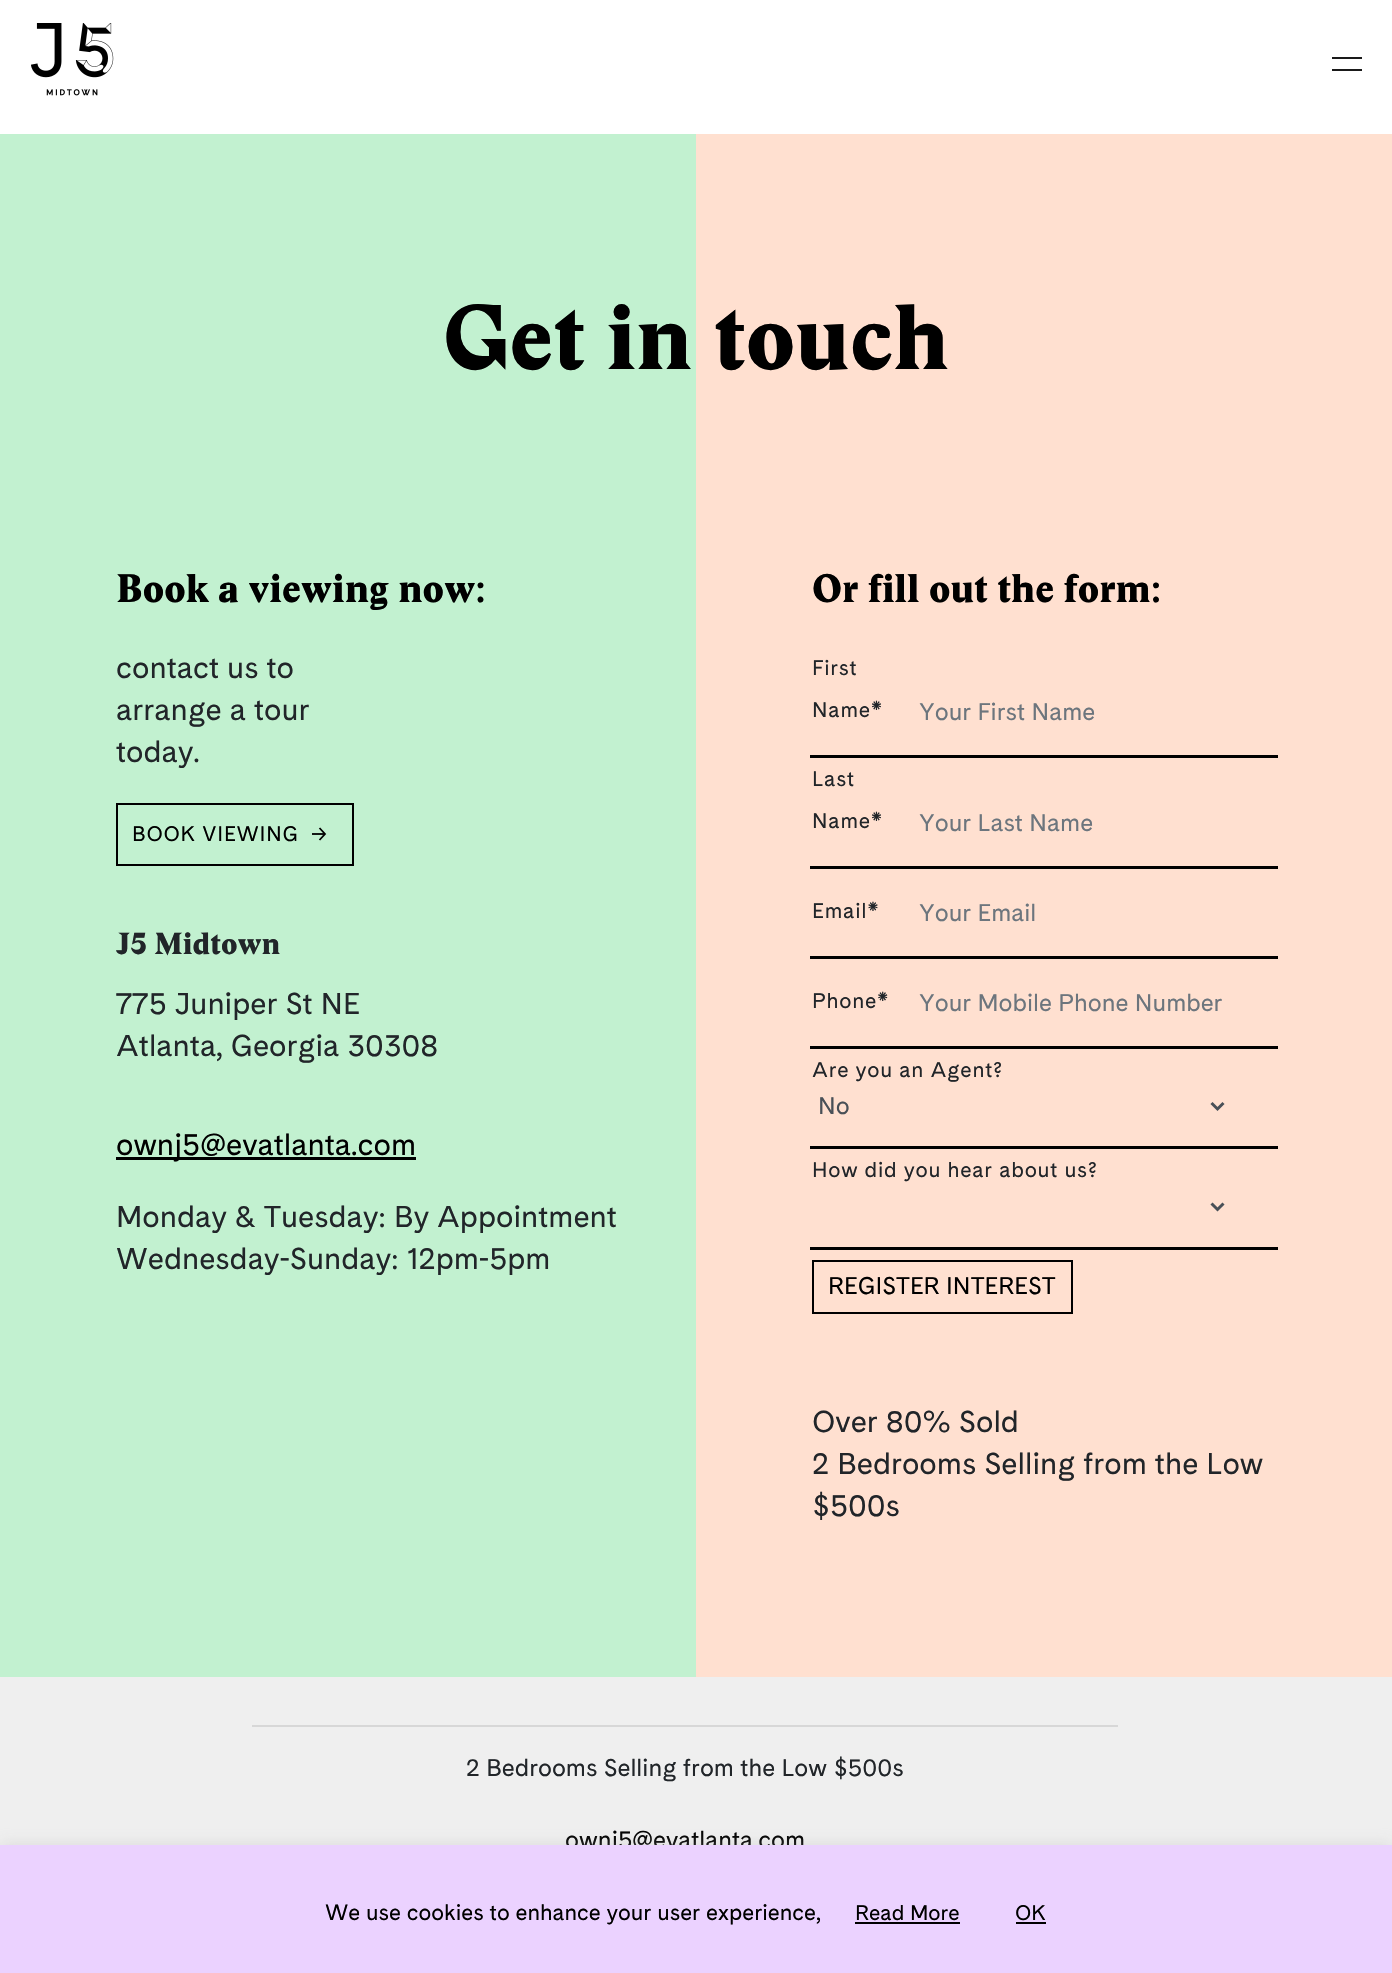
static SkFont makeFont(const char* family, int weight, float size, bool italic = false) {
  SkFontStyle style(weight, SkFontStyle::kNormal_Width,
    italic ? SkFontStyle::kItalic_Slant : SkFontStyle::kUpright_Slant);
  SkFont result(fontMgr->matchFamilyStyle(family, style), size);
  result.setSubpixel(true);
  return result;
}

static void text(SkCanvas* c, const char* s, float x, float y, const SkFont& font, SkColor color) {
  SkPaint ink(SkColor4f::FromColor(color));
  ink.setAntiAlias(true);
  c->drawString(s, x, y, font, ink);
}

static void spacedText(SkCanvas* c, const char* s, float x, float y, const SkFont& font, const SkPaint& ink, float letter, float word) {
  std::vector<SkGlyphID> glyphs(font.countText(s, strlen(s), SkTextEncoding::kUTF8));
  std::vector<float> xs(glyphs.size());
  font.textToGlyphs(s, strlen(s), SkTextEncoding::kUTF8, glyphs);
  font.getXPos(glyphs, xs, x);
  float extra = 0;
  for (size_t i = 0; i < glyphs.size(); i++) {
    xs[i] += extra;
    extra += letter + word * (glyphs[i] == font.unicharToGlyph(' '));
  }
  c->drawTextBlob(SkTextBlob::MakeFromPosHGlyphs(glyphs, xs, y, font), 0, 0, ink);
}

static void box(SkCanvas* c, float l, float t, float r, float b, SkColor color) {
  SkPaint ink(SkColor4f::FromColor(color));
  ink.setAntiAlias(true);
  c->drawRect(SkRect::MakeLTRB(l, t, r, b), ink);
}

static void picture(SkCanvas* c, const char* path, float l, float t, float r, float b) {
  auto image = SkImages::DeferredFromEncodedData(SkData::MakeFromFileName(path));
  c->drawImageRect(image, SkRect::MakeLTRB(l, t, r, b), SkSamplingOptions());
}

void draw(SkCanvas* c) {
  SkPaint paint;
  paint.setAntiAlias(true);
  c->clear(0xffc2f1d0);
  box(c, 0, 0, 1392, 134, 0xffffffff);
  picture(c, "img_01.png", 31, 23, 114, 96);
  box(c, 1332, 57, 1362, 59, 0xff1a1a1a);
  box(c, 1332, 69, 1362, 71, 0xff1a1a1a);
  box(c, 696, 134, 1392, 1677, 0xffffe0d0);
  SkFont face1 = makeFont("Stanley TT", 900, 90);
  text(c, "Get in touch", 443, 369, face1, 0xff000000);
  SkFont face2 = makeFont("Stanley TT", 900, 39);
  text(c, "Book a viewing now:", 116, 602, face2, 0xff000000);
  SkFont face3 = makeFont("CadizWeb", 400, 30);
  text(c, "contact us to", 116, 678, face3, 0xff212529);
  text(c, "arrange a tour", 116, 720, face3, 0xff212529);
  text(c, "today.", 116, 762, face3, 0xff212529);
  paint.setStyle(SkPaint::kStroke_Style);
  paint.setStrokeWidth(2);
  paint.setColor(0xff000000);
  c->drawRect(SkRect::MakeLTRB(117, 804, 353, 865), paint);
  SkFont face4 = makeFont("CadizWeb", 400, 21);
  paint.setStyle(SkPaint::kFill_Style);
  spacedText(c, "BOOK VIEWING", 132, 841, face4, paint, 0.75f, 0);
  paint.setStyle(SkPaint::kStroke_Style);
  paint.setStrokeWidth(1.8f);
  c->drawPath(SkPathBuilder().moveTo(319.5f, 828).lineTo(325, 834).lineTo(319.5f, 840).detach(), paint);
  box(c, 312, 833, 324, 835, 0xe6000000);
  SkFont face5 = makeFont("Stanley TT", 900, 30);
  text(c, "J5 Midtown", 116, 954, face5, 0xff212529);
  text(c, "775 Juniper St NE", 116, 1014, face3, 0xff212529);
  text(c, "Atlanta, Georgia 30308", 116, 1056, face3, 0xff212529);
  box(c, 116, 1157, 416, 1160, 0xff000000);
  text(c, "ownj5@evatlanta.com", 116, 1155, face3, 0xff000000);
  text(c, "Monday & Tuesday: By Appointment", 116, 1227, face3, 0xff212529);
  text(c, "Wednesday-Sunday: 12pm-5pm", 116, 1269, face3, 0xff212529);
  text(c, "Or fill out the form:", 812, 602, face2, 0xff000000);
  box(c, 810, 755, 1278, 758, 0xff000000);
  paint.setStyle(SkPaint::kFill_Style);
  paint.setColor(0xff212529);
  spacedText(c, "First", 812, 675, face4, paint, 0.75f, 0);
  spacedText(c, "Name*", 812, 717, face4, paint, 0.75f, 0);
  SkFont face6 = makeFont("CadizWeb", 400, 24);
  text(c, "Your First Name", 919, 720, face6, 0xff6c757d);
  box(c, 810, 866, 1278, 869, 0xff000000);
  spacedText(c, "Last", 812, 786, face4, paint, 0.75f, 0);
  spacedText(c, "Name*", 812, 828, face4, paint, 0.75f, 0);
  text(c, "Your Last Name", 919, 831, face6, 0xff6c757d);
  box(c, 810, 956, 1278, 959, 0xff000000);
  spacedText(c, "Email*", 812, 918, face4, paint, 0.75f, 0);
  text(c, "Your Email", 919, 921, face6, 0xff6c757d);
  box(c, 810, 1046, 1278, 1049, 0xff000000);
  spacedText(c, "Phone*", 812, 1008, face4, paint, 0.75f, 0);
  text(c, "Your Mobile Phone Number", 919, 1011, face6, 0xff6c757d);
  box(c, 810, 1146, 1278, 1149, 0xff000000);
  spacedText(c, "Are you an Agent?", 812, 1077, face4, paint, 0.75f, 0);
  paint.setStyle(SkPaint::kStroke_Style);
  paint.setStrokeWidth(3);
  paint.setColor(0xff495057);
  c->drawPath(SkPathBuilder().moveTo(1211.5f, 1103).lineTo(1217.5f, 1109).lineTo(1223.5f, 1103).detach(), paint);
  text(c, "No", 818, 1114, face6, 0xff495057);
  box(c, 810, 1247, 1278, 1250, 0xff000000);
  paint.setStyle(SkPaint::kFill_Style);
  paint.setColor(0xff212529);
  spacedText(c, "How did you hear about us?", 812, 1177, face4, paint, 0.75f, 0);
  paint.setStyle(SkPaint::kStroke_Style);
  paint.setColor(0xff495057);
  c->drawPath(SkPathBuilder().moveTo(1211.5f, 1203.5f).lineTo(1217.5f, 1209.5f).lineTo(1223.5f, 1203.5f).detach(), paint);
  paint.setStrokeWidth(2);
  paint.setColor(0xff000000);
  c->drawRect(SkRect::MakeLTRB(813, 1261, 1072, 1313), paint);
  text(c, "REGISTER INTEREST", 828, 1294, face6, 0xff000000);
  text(c, "Over 80% Sold", 812, 1432, face3, 0xff212529);
  text(c, "2 Bedrooms Selling from the Low", 812, 1474, face3, 0xff212529);
  text(c, "$500s", 812, 1516, face3, 0xff212529);
  box(c, 0, 1677, 1392, 1845, 0xffefefef);
  box(c, 252, 1725, 1118, 1727, 0xffd7d7d7);
  text(c, "2 Bedrooms Selling from the Low $500s", 466, 1776, face6, 0xff212529);
  text(c, "ownj5@evatlanta.com", 565, 1848, face6, 0xff000000);
  paint.setStyle(SkPaint::kFill_Style);
  paint.setColor(0x4dacabab);
  paint.setMaskFilter(SkMaskFilter::MakeBlur(kNormal_SkBlurStyle, 7.5f));
  c->drawRect(SkRect::MakeLTRB(0, 1844, 1392, 1973), paint);
  paint.setMaskFilter(nullptr);
  box(c, 0, 1845, 1392, 1973, 0xffebd2ff);
  SkFont face7 = makeFont("CadizWeb", 400, 22);
  text(c, "We use cookies to enhance your user experience,", 325, 1920, face7, 0xff000000);
  text(c, "Read More", 855, 1920, face4, 0xff000000);
  box(c, 855, 1922, 960, 1924, 0xff000000);
  text(c, "OK", 1015, 1920, face4, 0xff000000);
  box(c, 1016, 1922, 1046, 1924, 0xff000000);
}
